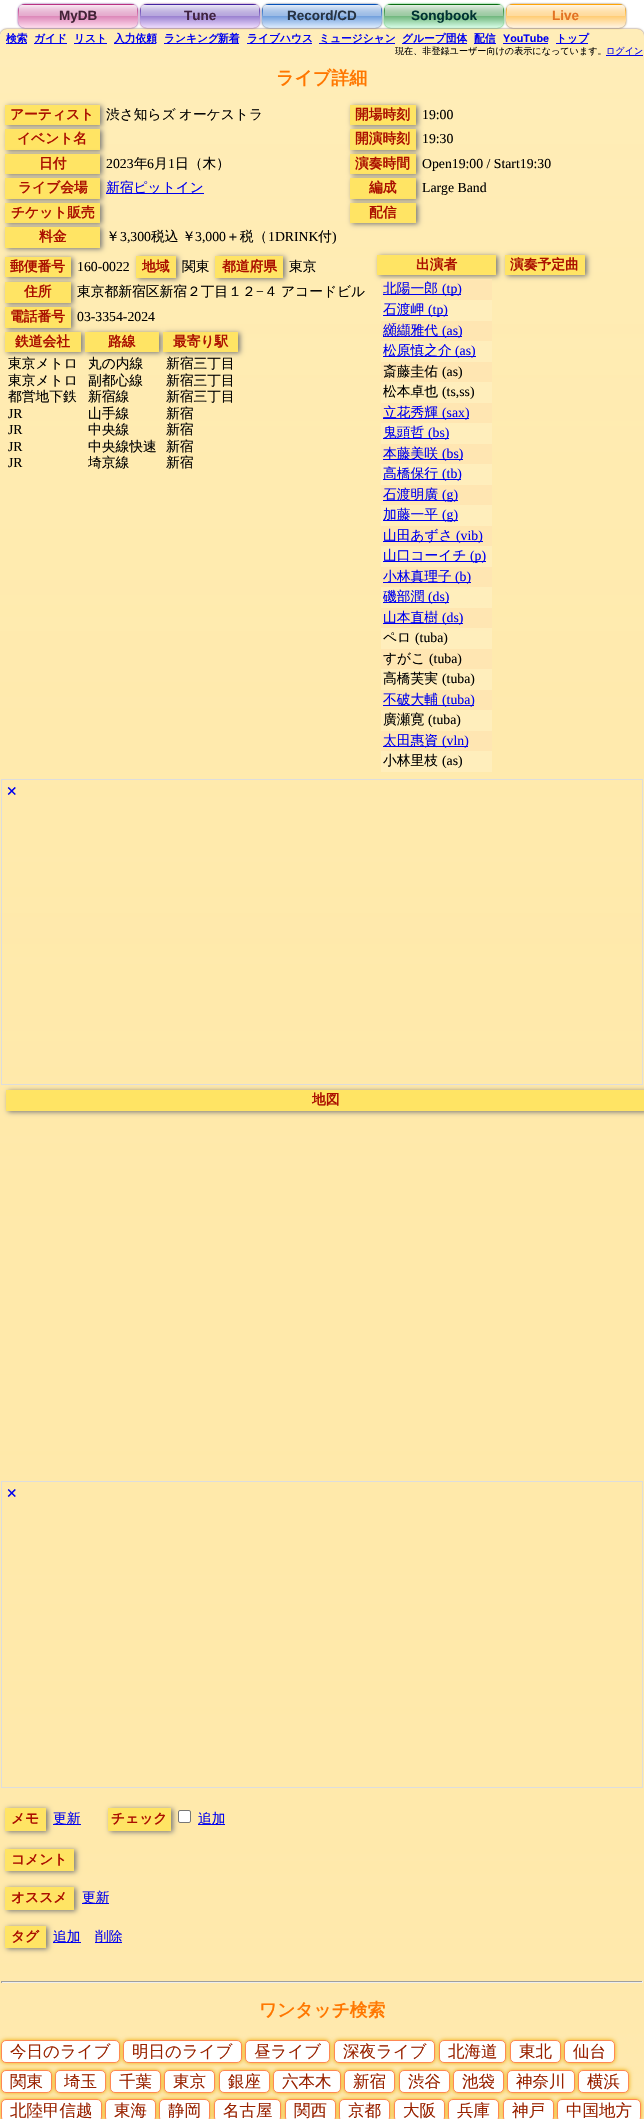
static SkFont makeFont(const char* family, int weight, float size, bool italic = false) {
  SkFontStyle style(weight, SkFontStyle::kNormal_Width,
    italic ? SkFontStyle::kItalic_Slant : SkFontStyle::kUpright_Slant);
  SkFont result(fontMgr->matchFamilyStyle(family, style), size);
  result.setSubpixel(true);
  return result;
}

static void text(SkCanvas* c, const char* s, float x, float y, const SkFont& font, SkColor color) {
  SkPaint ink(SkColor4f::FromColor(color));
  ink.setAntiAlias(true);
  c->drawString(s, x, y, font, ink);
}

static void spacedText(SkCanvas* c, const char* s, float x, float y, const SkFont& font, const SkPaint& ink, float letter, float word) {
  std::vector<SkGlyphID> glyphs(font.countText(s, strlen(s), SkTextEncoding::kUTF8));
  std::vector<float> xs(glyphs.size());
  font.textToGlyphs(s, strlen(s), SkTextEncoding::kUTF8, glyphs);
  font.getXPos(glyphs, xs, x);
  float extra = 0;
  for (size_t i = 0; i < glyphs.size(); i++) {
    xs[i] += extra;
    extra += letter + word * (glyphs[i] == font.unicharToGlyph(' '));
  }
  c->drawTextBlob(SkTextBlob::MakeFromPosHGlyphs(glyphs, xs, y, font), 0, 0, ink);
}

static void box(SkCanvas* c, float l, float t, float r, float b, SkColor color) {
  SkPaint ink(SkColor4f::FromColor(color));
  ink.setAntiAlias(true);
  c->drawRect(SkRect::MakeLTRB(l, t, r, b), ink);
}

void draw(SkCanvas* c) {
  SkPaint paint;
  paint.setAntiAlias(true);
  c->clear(0xffffffff);
  paint.setColor(0xff6c268a);
  paint.setMaskFilter(SkMaskFilter::MakeBlur(kNormal_SkBlurStyle, 1));
  c->drawRoundRect(SkRect::MakeLTRB(18, 4, 138, 28), 7, 7, paint);
  paint.setMaskFilter(nullptr);
  {
    const SkColor colors[] = {0xffb72e80, 0xffffdeef};
    const float stops[] = {0, 1};
    const SkPoint ends[] = {{78, 4}, {78, 28}};
    paint.setShader(SkGradientShader::MakeLinear(ends, colors, stops, 2, SkTileMode::kClamp));
    paint.setAlpha(255);
  }
  c->drawRoundRect(SkRect::MakeLTRB(18, 4, 138, 28), 7, 7, paint);
  {
    const SkColor colors[] = {0xe6ffffff, 0x4dffffff, 0x00ffffff, 0x00ffffff};
    const float stops[] = {0, 0.5f, 0.51f, 1};
    const SkPoint ends[] = {{78, 5}, {78, 27}};
    paint.setShader(SkGradientShader::MakeLinear(ends, colors, stops, 4, SkTileMode::kClamp));
    paint.setAlpha(255);
  }
  c->drawRoundRect(SkRect::MakeLTRB(19, 5, 137, 27), 3, 3, paint);
  SkFont face1 = makeFont("Liberation Sans", 700, 13.5f);
  text(c, "MyDB", 59, 20, face1, 0xff432337);
  paint.setShader(nullptr);
  paint.setColor(0xff7c267f);
  paint.setMaskFilter(SkMaskFilter::MakeBlur(kNormal_SkBlurStyle, 1));
  c->drawRoundRect(SkRect::MakeLTRB(140, 4, 260, 28), 7, 7, paint);
  paint.setMaskFilter(nullptr);
  {
    const SkColor colors[] = {0xff40209f, 0xfff0deff};
    const float stops[] = {0, 1};
    const SkPoint ends[] = {{200, 4}, {200, 28}};
    paint.setShader(SkGradientShader::MakeLinear(ends, colors, stops, 2, SkTileMode::kClamp));
    paint.setAlpha(255);
  }
  c->drawRoundRect(SkRect::MakeLTRB(140, 4, 260, 28), 7, 7, paint);
  {
    const SkColor colors[] = {0xe6ffffff, 0x4dffffff, 0x00ffffff, 0x00ffffff};
    const float stops[] = {0, 0.5f, 0.51f, 1};
    const SkPoint ends[] = {{200, 5}, {200, 27}};
    paint.setShader(SkGradientShader::MakeLinear(ends, colors, stops, 4, SkTileMode::kClamp));
    paint.setAlpha(255);
  }
  c->drawRoundRect(SkRect::MakeLTRB(141, 5, 259, 27), 3, 3, paint);
  text(c, "Tune", 184, 20, face1, 0xff402342);
  paint.setShader(nullptr);
  paint.setColor(0xff2a466c);
  paint.setMaskFilter(SkMaskFilter::MakeBlur(kNormal_SkBlurStyle, 1));
  c->drawRoundRect(SkRect::MakeLTRB(262, 4, 382, 28), 7, 7, paint);
  paint.setMaskFilter(nullptr);
  {
    const SkColor colors[] = {0xff004eb7, 0xffdfeeff};
    const float stops[] = {0, 1};
    const SkPoint ends[] = {{322, 4}, {322, 28}};
    paint.setShader(SkGradientShader::MakeLinear(ends, colors, stops, 2, SkTileMode::kClamp));
    paint.setAlpha(255);
  }
  c->drawRoundRect(SkRect::MakeLTRB(262, 4, 382, 28), 7, 7, paint);
  {
    const SkColor colors[] = {0xe6ffffff, 0x4dffffff, 0x00ffffff, 0x00ffffff};
    const float stops[] = {0, 0.5f, 0.51f, 1};
    const SkPoint ends[] = {{322, 5}, {322, 27}};
    paint.setShader(SkGradientShader::MakeLinear(ends, colors, stops, 4, SkTileMode::kClamp));
    paint.setAlpha(255);
  }
  c->drawRoundRect(SkRect::MakeLTRB(263, 5, 381, 27), 3, 3, paint);
  text(c, "Record/CD", 287, 20, face1, 0xff273343);
  paint.setShader(nullptr);
  paint.setColor(0xff0aac26);
  paint.setMaskFilter(SkMaskFilter::MakeBlur(kNormal_SkBlurStyle, 1));
  c->drawRoundRect(SkRect::MakeLTRB(384, 4, 504, 28), 7, 7, paint);
  paint.setMaskFilter(nullptr);
  {
    const SkColor colors[] = {0xff066a0d, 0xffd8ffe9};
    const float stops[] = {0, 1};
    const SkPoint ends[] = {{444, 4}, {444, 28}};
    paint.setShader(SkGradientShader::MakeLinear(ends, colors, stops, 2, SkTileMode::kClamp));
    paint.setAlpha(255);
  }
  c->drawRoundRect(SkRect::MakeLTRB(384, 4, 504, 28), 7, 7, paint);
  {
    const SkColor colors[] = {0xe6ffffff, 0x4dffffff, 0x00ffffff, 0x00ffffff};
    const float stops[] = {0, 0.5f, 0.51f, 1};
    const SkPoint ends[] = {{444, 5}, {444, 27}};
    paint.setShader(SkGradientShader::MakeLinear(ends, colors, stops, 4, SkTileMode::kClamp));
    paint.setAlpha(255);
  }
  c->drawRoundRect(SkRect::MakeLTRB(385, 5, 503, 27), 3, 3, paint);
  text(c, "Songbook", 411, 20, face1, 0xff003333);
  paint.setShader(nullptr);
  paint.setColor(0xff7c5a26);
  paint.setMaskFilter(SkMaskFilter::MakeBlur(kNormal_SkBlurStyle, 1));
  c->drawRoundRect(SkRect::MakeLTRB(506, 4, 626, 28), 7, 7, paint);
  paint.setMaskFilter(nullptr);
  {
    const SkColor colors[] = {0xffffa200, 0xfffff5e4};
    const float stops[] = {0, 1};
    const SkPoint ends[] = {{566, 4}, {566, 28}};
    paint.setShader(SkGradientShader::MakeLinear(ends, colors, stops, 2, SkTileMode::kClamp));
    paint.setAlpha(255);
  }
  c->drawRoundRect(SkRect::MakeLTRB(506, 4, 626, 28), 7, 7, paint);
  {
    const SkColor colors[] = {0xe6ffffff, 0x4dffffff, 0x00ffffff, 0x00ffffff};
    const float stops[] = {0, 0.5f, 0.51f, 1};
    const SkPoint ends[] = {{566, 5}, {566, 27}};
    paint.setShader(SkGradientShader::MakeLinear(ends, colors, stops, 4, SkTileMode::kClamp));
    paint.setAlpha(255);
  }
  c->drawRoundRect(SkRect::MakeLTRB(507, 5, 625, 27), 3, 3, paint);
  text(c, "Live", 552, 20, face1, 0xffe37323);
  c->save();
  c->clipPath(SkPathBuilder(SkPathFillType::kEvenOdd).moveTo(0, 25).lineTo(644, 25).lineTo(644, 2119).lineTo(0, 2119).close().moveTo(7, 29).lineTo(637, 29).cubicTo(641, 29, 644, 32, 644, 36).lineTo(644, 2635).cubicTo(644, 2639, 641, 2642, 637, 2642).lineTo(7, 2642).cubicTo(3, 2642, 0, 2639, 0, 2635).lineTo(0, 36).cubicTo(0, 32, 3, 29, 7, 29).close().detach(), true);
  paint.setShader(nullptr);
  paint.setColor(0xff6c462a);
  paint.setMaskFilter(SkMaskFilter::MakeBlur(kNormal_SkBlurStyle, 1));
  c->drawRoundRect(SkRect::MakeLTRB(0, 29, 644, 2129), 7, 7, paint);
  paint.setMaskFilter(nullptr);
  c->restore();
  {
    const SkColor colors[] = {0x4dffc414, 0x1affc414, 0x4dffc414, 0xb3ffe297};
    const float stops[] = {0, 0, 0, 1};
    const SkPoint ends[] = {{322, 29}, {322, 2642}};
    paint.setShader(SkGradientShader::MakeLinear(ends, colors, stops, 4, SkTileMode::kClamp));
    paint.setAlpha(255);
  }
  c->drawRoundRect(SkRect::MakeLTRB(0, 29, 644, 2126), 7, 7, paint);
  box(c, 6, 43, 27, 44, 0xff0000ee);
  SkFont face2 = makeFont("WenQuanYi Zen Hei", 700, 10.75f);
  text(c, "検索", 6, 42, face2, 0xff0000ee);
  box(c, 34, 43, 67, 44, 0xff0000ee);
  text(c, "ガイド", 34, 42, face2, 0xff0000ee);
  box(c, 74, 43, 107, 44, 0xff0000ee);
  text(c, "リスト", 74, 42, face2, 0xff0000ee);
  box(c, 114, 43, 156, 44, 0xff0000ee);
  text(c, "入力依頼", 114, 42, face2, 0xff0000ee);
  box(c, 164, 43, 218, 44, 0xff0000ee);
  text(c, "ランキング", 164, 42, face2, 0xff0000ee);
  box(c, 218, 43, 239, 44, 0xff0000ee);
  text(c, "新着", 218, 42, face2, 0xff0000ee);
  box(c, 247, 43, 312, 44, 0xff0000ee);
  text(c, "ライブハウス", 247, 42, face2, 0xff0000ee);
  box(c, 319, 43, 395, 44, 0xff0000ee);
  text(c, "ミュージシャン", 319, 42, face2, 0xff0000ee);
  box(c, 402, 43, 467, 44, 0xff0000ee);
  text(c, "グループ団体", 402, 42, face2, 0xff0000ee);
  box(c, 474, 43, 496, 44, 0xff0000ee);
  text(c, "配信", 474, 42, face2, 0xff0000ee);
  SkFont face3 = makeFont("Liberation Sans", 700, 10.75f);
  text(c, "YouTube", 503, 42, face3, 0xff0000ee);
  box(c, 503, 43, 548, 44, 0xff0000ee);
  box(c, 556, 43, 588, 44, 0xff0000ee);
  text(c, "トップ", 556, 42, face2, 0xff0000ee);
  SkFont face4 = makeFont("WenQuanYi Zen Hei", 500, 9.1f);
  text(c, "現在、非登録ユーザー向けの表示になっています。", 395, 54, face4, 0xff000000);
  box(c, 606, 55, 643, 56, 0xff0000ee);
  text(c, "ログイン", 606, 54, face4, 0xff0000ee);
  SkFont face5 = makeFont("WenQuanYi Zen Hei", 700, 18);
  text(c, "ライブ詳細", 276, 84, face5, 0xffff7700);
  paint.setShader(nullptr);
  paint.setColor(0xff777777);
  paint.setMaskFilter(SkMaskFilter::MakeBlur(kNormal_SkBlurStyle, 2.5f));
  c->drawRect(SkRect::MakeLTRB(7, 106, 102, 126), paint);
  paint.setMaskFilter(nullptr);
  box(c, 5, 105, 100, 125, 0xffffe464);
  SkFont face6 = makeFont("WenQuanYi Zen Hei", 700, 13.75f);
  text(c, "アーティスト", 10, 119, face6, 0xffab1000);
  SkFont face7 = makeFont("WenQuanYi Zen Hei", 500, 13.75f);
  paint.setColor(0xff000000);
  spacedText(c, "渋さ知らズ オーケストラ", 106, 119, face7, paint, 0, -1);
  paint.setColor(0xff777777);
  paint.setMaskFilter(SkMaskFilter::MakeBlur(kNormal_SkBlurStyle, 2.5f));
  c->drawRect(SkRect::MakeLTRB(7, 130, 102, 151), paint);
  paint.setMaskFilter(nullptr);
  box(c, 5, 129, 100, 150, 0xffffe464);
  text(c, "イベント名", 17, 143, face6, 0xffab1000);
  paint.setMaskFilter(SkMaskFilter::MakeBlur(kNormal_SkBlurStyle, 2.5f));
  c->drawRect(SkRect::MakeLTRB(7, 155, 102, 175), paint);
  paint.setMaskFilter(nullptr);
  box(c, 5, 154, 100, 174, 0xffffe464);
  text(c, "日付", 39, 168, face6, 0xffab1000);
  SkFont face8 = makeFont("Liberation Serif", 400, 13.75f);
  text(c, "2023", 106, 168, face8, 0xff000000);
  text(c, "年", 134, 168, face7, 0xff000000);
  text(c, "6", 147, 168, face8, 0xff000000);
  text(c, "月", 154, 168, face7, 0xff000000);
  text(c, "1", 168, 168, face8, 0xff000000);
  text(c, "日（木）", 175, 168, face7, 0xff000000);
  paint.setMaskFilter(SkMaskFilter::MakeBlur(kNormal_SkBlurStyle, 2.5f));
  c->drawRect(SkRect::MakeLTRB(7, 179, 102, 200), paint);
  paint.setMaskFilter(nullptr);
  box(c, 5, 178, 100, 199, 0xffffe464);
  text(c, "ライブ会場", 18, 192, face6, 0xffab1000);
  box(c, 106, 193, 204, 194, 0xff0000ee);
  text(c, "新宿ピットイン", 106, 192, face7, 0xff0000ee);
  paint.setMaskFilter(SkMaskFilter::MakeBlur(kNormal_SkBlurStyle, 2.5f));
  c->drawRect(SkRect::MakeLTRB(7, 204, 102, 224), paint);
  paint.setMaskFilter(nullptr);
  box(c, 5, 203, 100, 223, 0xffffe464);
  text(c, "チケット販売", 11, 217, face6, 0xffab1000);
  paint.setMaskFilter(SkMaskFilter::MakeBlur(kNormal_SkBlurStyle, 2.5f));
  c->drawRect(SkRect::MakeLTRB(7, 228, 102, 249), paint);
  paint.setMaskFilter(nullptr);
  box(c, 5, 227, 100, 248, 0xffffe464);
  text(c, "料金", 39, 241, face6, 0xffab1000);
  text(c, "￥", 106, 241, face7, 0xff000000);
  text(c, "3,300", 120, 241, face8, 0xff000000);
  text(c, "税込", 151, 241, face7, 0xff000000);
  text(c, "￥", 182, 241, face7, 0xff000000);
  text(c, "3,000", 195, 241, face8, 0xff000000);
  text(c, "＋税（", 226, 241, face7, 0xff000000);
  text(c, "1DRINK", 268, 241, face8, 0xff000000);
  text(c, "付", 318, 241, face7, 0xff000000);
  text(c, ")", 332, 241, face8, 0xff000000);
  paint.setMaskFilter(SkMaskFilter::MakeBlur(kNormal_SkBlurStyle, 2.5f));
  c->drawRect(SkRect::MakeLTRB(352, 106, 418, 126), paint);
  paint.setMaskFilter(nullptr);
  box(c, 350, 105, 416, 125, 0xffffe464);
  text(c, "開場時刻", 355, 119, face6, 0xffab1000);
  text(c, "19:00", 422, 119, face8, 0xff000000);
  paint.setMaskFilter(SkMaskFilter::MakeBlur(kNormal_SkBlurStyle, 2.5f));
  c->drawRect(SkRect::MakeLTRB(352, 130, 418, 151), paint);
  paint.setMaskFilter(nullptr);
  box(c, 350, 129, 416, 150, 0xffffe464);
  text(c, "開演時刻", 355, 143, face6, 0xffab1000);
  text(c, "19:30", 422, 143, face8, 0xff000000);
  paint.setMaskFilter(SkMaskFilter::MakeBlur(kNormal_SkBlurStyle, 2.5f));
  c->drawRect(SkRect::MakeLTRB(352, 155, 418, 175), paint);
  paint.setMaskFilter(nullptr);
  box(c, 350, 154, 416, 174, 0xffffe464);
  paint.setMaskFilter(SkMaskFilter::MakeBlur(kNormal_SkBlurStyle, 2.5f));
  c->drawRect(SkRect::MakeLTRB(352, 179, 418, 200), paint);
  paint.setMaskFilter(nullptr);
  text(c, "演奏時間", 355, 168, face6, 0xffab1000);
  text(c, "Open19:00 / Start19:30", 422, 168, face8, 0xff000000);
  box(c, 350, 178, 416, 199, 0xffffe464);
  text(c, "編成", 369, 192, face6, 0xffab1000);
  text(c, "Large Band", 422, 192, face8, 0xff000000);
  paint.setMaskFilter(SkMaskFilter::MakeBlur(kNormal_SkBlurStyle, 2.5f));
  c->drawRect(SkRect::MakeLTRB(352, 204, 418, 224), paint);
  paint.setMaskFilter(nullptr);
  box(c, 350, 203, 416, 223, 0xffffe464);
  text(c, "配信", 369, 217, face6, 0xffab1000);
  paint.setMaskFilter(SkMaskFilter::MakeBlur(kNormal_SkBlurStyle, 2.5f));
  c->drawRect(SkRect::MakeLTRB(7, 258, 73, 278), paint);
  paint.setMaskFilter(nullptr);
  box(c, 5, 257, 71, 277, 0xffffe464);
  text(c, "郵便番号", 10, 271, face6, 0xffab1000);
  text(c, "160-0022", 77, 271, face8, 0xff000000);
  paint.setMaskFilter(SkMaskFilter::MakeBlur(kNormal_SkBlurStyle, 2.5f));
  c->drawRect(SkRect::MakeLTRB(138, 257, 178, 279), paint);
  paint.setMaskFilter(nullptr);
  box(c, 136, 256, 176, 278, 0xffffe464);
  text(c, "地域", 142, 271, face6, 0xffab1000);
  text(c, "関東", 182, 271, face7, 0xff000000);
  paint.setMaskFilter(SkMaskFilter::MakeBlur(kNormal_SkBlurStyle, 2.5f));
  c->drawRect(SkRect::MakeLTRB(217, 257, 285, 279), paint);
  paint.setMaskFilter(nullptr);
  box(c, 215, 256, 283, 278, 0xffffe464);
  text(c, "都道府県", 222, 271, face6, 0xffab1000);
  text(c, "東京", 289, 271, face7, 0xff000000);
  paint.setMaskFilter(SkMaskFilter::MakeBlur(kNormal_SkBlurStyle, 2.5f));
  c->drawRect(SkRect::MakeLTRB(7, 283, 73, 304), paint);
  paint.setMaskFilter(nullptr);
  box(c, 5, 282, 71, 303, 0xffffe464);
  text(c, "住所", 24, 296, face6, 0xffab1000);
  text(c, "東京都新宿区新宿２丁目１２", 77, 296, face7, 0xff000000);
  text(c, "−", 256, 296, face8, 0xff000000);
  text(c, "４", 264, 296, face7, 0xff000000);
  text(c, "アコードビル", 281, 296, face7, 0xff000000);
  paint.setMaskFilter(SkMaskFilter::MakeBlur(kNormal_SkBlurStyle, 2.5f));
  c->drawRect(SkRect::MakeLTRB(7, 308, 73, 329), paint);
  paint.setMaskFilter(nullptr);
  box(c, 5, 307, 71, 328, 0xffffe464);
  text(c, "電話番号", 10, 321, face6, 0xffab1000);
  text(c, "03-3354-2024", 77, 321, face8, 0xff000000);
  paint.setMaskFilter(SkMaskFilter::MakeBlur(kNormal_SkBlurStyle, 2.5f));
  c->drawRect(SkRect::MakeLTRB(7, 333, 83, 353), paint);
  paint.setMaskFilter(nullptr);
  box(c, 5, 332, 81, 352, 0xffffe464);
  text(c, "鉄道会社", 15, 346, face6, 0xffab1000);
  text(c, "東京メトロ", 8, 368, face7, 0xff000000);
  text(c, "東京メトロ", 8, 385, face7, 0xff000000);
  text(c, "都営地下鉄", 8, 401, face7, 0xff000000);
  text(c, "JR", 8, 418, face8, 0xff000000);
  text(c, "JR", 8, 434, face8, 0xff000000);
  text(c, "JR", 8, 451, face8, 0xff000000);
  text(c, "JR", 8, 467, face8, 0xff000000);
  paint.setMaskFilter(SkMaskFilter::MakeBlur(kNormal_SkBlurStyle, 2.5f));
  c->drawRect(SkRect::MakeLTRB(87, 333, 161, 353), paint);
  paint.setMaskFilter(nullptr);
  box(c, 85, 332, 159, 352, 0xffffe464);
  text(c, "路線", 108, 346, face6, 0xffab1000);
  text(c, "丸の内線", 88, 368, face7, 0xff000000);
  text(c, "副都心線", 88, 385, face7, 0xff000000);
  text(c, "新宿線", 88, 401, face7, 0xff000000);
  text(c, "山手線", 88, 418, face7, 0xff000000);
  text(c, "中央線", 88, 434, face7, 0xff000000);
  text(c, "中央線快速", 88, 451, face7, 0xff000000);
  text(c, "埼京線", 88, 467, face7, 0xff000000);
  paint.setMaskFilter(SkMaskFilter::MakeBlur(kNormal_SkBlurStyle, 2.5f));
  c->drawRect(SkRect::MakeLTRB(165, 333, 240, 353), paint);
  paint.setMaskFilter(nullptr);
  box(c, 163, 332, 238, 352, 0xffffe464);
  text(c, "最寄り駅", 173, 346, face6, 0xffab1000);
  text(c, "新宿三丁目", 166, 368, face7, 0xff000000);
  text(c, "新宿三丁目", 166, 385, face7, 0xff000000);
  text(c, "新宿三丁目", 166, 401, face7, 0xff000000);
  text(c, "新宿", 166, 418, face7, 0xff000000);
  text(c, "新宿", 166, 434, face7, 0xff000000);
  text(c, "新宿", 166, 451, face7, 0xff000000);
  text(c, "新宿", 166, 467, face7, 0xff000000);
  paint.setMaskFilter(SkMaskFilter::MakeBlur(kNormal_SkBlurStyle, 2.5f));
  c->drawRect(SkRect::MakeLTRB(379, 256, 498, 276), paint);
  paint.setMaskFilter(nullptr);
  box(c, 377, 255, 496, 275, 0xffffe464);
  text(c, "出演者", 416, 269, face6, 0xffab1000);
  box(c, 381, 279, 492, 300, 0xffffe6b2);
  box(c, 383, 294, 461, 295, 0xff0000ee);
  text(c, "北陽一郎", 383, 293, face7, 0xff0000ee);
  text(c, "(tp)", 442, 293, face8, 0xff0000ee);
  box(c, 381, 300, 492, 321, 0xffffeebc);
  box(c, 383, 315, 448, 316, 0xff0000ee);
  text(c, "石渡岬", 383, 314, face7, 0xff0000ee);
  text(c, "(tp)", 428, 314, face8, 0xff0000ee);
  box(c, 381, 321, 492, 341, 0xffffe6b2);
  box(c, 383, 336, 462, 337, 0xff0000ee);
  text(c, "纐纈雅代", 383, 335, face7, 0xff0000ee);
  text(c, "(as)", 442, 335, face8, 0xff0000ee);
  box(c, 381, 341, 492, 362, 0xffffeebc);
  box(c, 383, 356, 476, 357, 0xff0000ee);
  text(c, "松原慎之介", 383, 355, face7, 0xff0000ee);
  text(c, "(as)", 455, 355, face8, 0xff0000ee);
  box(c, 381, 362, 492, 382, 0xffffe6b2);
  text(c, "斎藤圭佑", 383, 376, face7, 0xff000000);
  text(c, "(as)", 442, 376, face8, 0xff000000);
  box(c, 381, 382, 492, 403, 0xffffeebc);
  text(c, "松本卓也", 383, 396, face7, 0xff000000);
  text(c, "(ts,ss)", 442, 396, face8, 0xff000000);
  box(c, 381, 403, 492, 423, 0xffffe6b2);
  box(c, 383, 418, 469, 419, 0xff0000ee);
  text(c, "立花秀輝", 383, 417, face7, 0xff0000ee);
  text(c, "(sax)", 442, 417, face8, 0xff0000ee);
  box(c, 381, 423, 492, 444, 0xffffeebc);
  box(c, 383, 438, 449, 439, 0xff0000ee);
  text(c, "鬼頭哲", 383, 437, face7, 0xff0000ee);
  text(c, "(bs)", 428, 437, face8, 0xff0000ee);
  box(c, 381, 444, 492, 464, 0xffffe6b2);
  box(c, 383, 459, 463, 460, 0xff0000ee);
  text(c, "本藤美咲", 383, 458, face7, 0xff0000ee);
  text(c, "(bs)", 442, 458, face8, 0xff0000ee);
  box(c, 381, 464, 492, 485, 0xffffeebc);
  box(c, 383, 479, 461, 480, 0xff0000ee);
  text(c, "高橋保行", 383, 478, face7, 0xff0000ee);
  text(c, "(tb)", 442, 478, face8, 0xff0000ee);
  box(c, 381, 485, 492, 505, 0xffffe6b2);
  box(c, 383, 500, 458, 501, 0xff0000ee);
  text(c, "石渡明廣", 383, 499, face7, 0xff0000ee);
  text(c, "(g)", 442, 499, face8, 0xff0000ee);
  box(c, 381, 505, 492, 526, 0xffffeebc);
  box(c, 383, 520, 458, 521, 0xff0000ee);
  text(c, "加藤一平", 383, 519, face7, 0xff0000ee);
  text(c, "(g)", 442, 519, face8, 0xff0000ee);
  box(c, 381, 526, 492, 546, 0xffffe6b2);
  box(c, 383, 541, 483, 542, 0xff0000ee);
  text(c, "山田あずさ", 383, 540, face7, 0xff0000ee);
  text(c, "(vib)", 456, 540, face8, 0xff0000ee);
  box(c, 381, 546, 492, 567, 0xffffeebc);
  box(c, 383, 561, 486, 562, 0xff0000ee);
  text(c, "山口コーイチ", 383, 560, face7, 0xff0000ee);
  text(c, "(p)", 470, 560, face8, 0xff0000ee);
  box(c, 381, 567, 492, 587, 0xffffe6b2);
  box(c, 383, 582, 471, 583, 0xff0000ee);
  text(c, "小林真理子", 383, 581, face7, 0xff0000ee);
  text(c, "(b)", 455, 581, face8, 0xff0000ee);
  box(c, 381, 587, 492, 608, 0xffffeebc);
  box(c, 383, 602, 449, 603, 0xff0000ee);
  text(c, "磯部潤", 383, 601, face7, 0xff0000ee);
  text(c, "(ds)", 428, 601, face8, 0xff0000ee);
  box(c, 381, 608, 492, 628, 0xffffe6b2);
  box(c, 383, 623, 463, 624, 0xff0000ee);
  text(c, "山本直樹", 383, 622, face7, 0xff0000ee);
  text(c, "(ds)", 442, 622, face8, 0xff0000ee);
  box(c, 381, 628, 492, 649, 0xffffeebc);
  text(c, "ペロ", 383, 642, face7, 0xff000000);
  text(c, "(tuba)", 415, 642, face8, 0xff000000);
  box(c, 381, 649, 492, 669, 0xffffe6b2);
  text(c, "すがこ", 383, 663, face7, 0xff000000);
  text(c, "(tuba)", 429, 663, face8, 0xff000000);
  box(c, 381, 669, 492, 690, 0xffffeebc);
  text(c, "高橋芙実", 383, 683, face7, 0xff000000);
  text(c, "(tuba)", 442, 683, face8, 0xff000000);
  box(c, 381, 690, 492, 710, 0xffffe6b2);
  box(c, 383, 705, 474, 706, 0xff0000ee);
  text(c, "不破大輔", 383, 704, face7, 0xff0000ee);
  text(c, "(tuba)", 442, 704, face8, 0xff0000ee);
  box(c, 381, 710, 492, 731, 0xffffeebc);
  text(c, "廣瀬寛", 383, 724, face7, 0xff000000);
  text(c, "(tuba)", 428, 724, face8, 0xff000000);
  box(c, 381, 731, 492, 751, 0xffffe6b2);
  box(c, 383, 746, 468, 747, 0xff0000ee);
  text(c, "太田惠資", 383, 745, face7, 0xff0000ee);
  text(c, "(vln)", 442, 745, face8, 0xff0000ee);
  box(c, 381, 751, 492, 772, 0xffffeebc);
  text(c, "小林里枝", 383, 765, face7, 0xff000000);
  text(c, "(as)", 442, 765, face8, 0xff000000);
  paint.setMaskFilter(SkMaskFilter::MakeBlur(kNormal_SkBlurStyle, 2.5f));
  c->drawRect(SkRect::MakeLTRB(507, 256, 587, 276), paint);
  paint.setMaskFilter(nullptr);
  box(c, 505, 255, 585, 275, 0xffffe464);
  text(c, "演奏予定曲", 510, 269, face6, 0xffab1000);
  paint.setStyle(SkPaint::kStroke_Style);
  paint.setStrokeWidth(1);
  paint.setColor(0xffdddddd);
  c->drawRect(SkRect::MakeLTRB(1.5f, 779.5f, 642.5f, 1084.5f), paint);
  SkFont face9 = makeFont("DejaVu Sans", 400, 13.75f);
  text(c, "✕", 6, 796, face9, 0xff0000ee);
  paint.setStyle(SkPaint::kFill_Style);
  paint.setColor(0xff777777);
  paint.setMaskFilter(SkMaskFilter::MakeBlur(kNormal_SkBlurStyle, 2.5f));
  c->drawRect(SkRect::MakeLTRB(8, 1091, 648, 1112), paint);
  paint.setMaskFilter(nullptr);
  box(c, 6, 1090, 644, 1111, 0xffffe464);
  text(c, "地図", 312, 1104, face6, 0xffab1000);
  paint.setStyle(SkPaint::kStroke_Style);
  paint.setColor(0xffdddddd);
  c->drawRect(SkRect::MakeLTRB(1.5f, 1481.5f, 642.5f, 1787.5f), paint);
  text(c, "✕", 6, 1498, face9, 0xff0000ee);
  paint.setStyle(SkPaint::kFill_Style);
  paint.setColor(0xff777777);
  paint.setMaskFilter(SkMaskFilter::MakeBlur(kNormal_SkBlurStyle, 2.5f));
  c->drawRect(SkRect::MakeLTRB(7, 1809, 48, 1832), paint);
  paint.setMaskFilter(nullptr);
  box(c, 5, 1808, 46, 1831, 0xffffe464);
  text(c, "メモ", 11, 1823, face6, 0xffab1000);
  box(c, 53, 1824, 81, 1825, 0xff0000ee);
  text(c, "更新", 53, 1823, face7, 0xff0000ee);
  paint.setMaskFilter(SkMaskFilter::MakeBlur(kNormal_SkBlurStyle, 2.5f));
  c->drawRect(SkRect::MakeLTRB(110, 1809, 173, 1832), paint);
  paint.setMaskFilter(nullptr);
  box(c, 108, 1808, 171, 1831, 0xffffe464);
  text(c, "チェック", 111, 1823, face6, 0xffab1000);
  paint.setColor(0xffffffff);
  c->drawRoundRect(SkRect::MakeLTRB(178.5f, 1810.5f, 190.5f, 1822.5f), 1.5f, 1.5f, paint);
  paint.setStyle(SkPaint::kStroke_Style);
  paint.setColor(0xff767676);
  c->drawRoundRect(SkRect::MakeLTRB(178.5f, 1810.5f, 190.5f, 1822.5f), 1.5f, 1.5f, paint);
  box(c, 198, 1824, 225, 1825, 0xff0000ee);
  text(c, "追加", 198, 1823, face7, 0xff0000ee);
  paint.setStyle(SkPaint::kFill_Style);
  paint.setColor(0xff777777);
  paint.setMaskFilter(SkMaskFilter::MakeBlur(kNormal_SkBlurStyle, 2.5f));
  c->drawRect(SkRect::MakeLTRB(7, 1850, 76, 1872), paint);
  paint.setMaskFilter(nullptr);
  box(c, 5, 1849, 74, 1871, 0xffffe464);
  text(c, "コメント", 11, 1864, face6, 0xffab1000);
  paint.setMaskFilter(SkMaskFilter::MakeBlur(kNormal_SkBlurStyle, 2.5f));
  c->drawRect(SkRect::MakeLTRB(7, 1888, 76, 1911), paint);
  paint.setMaskFilter(nullptr);
  box(c, 5, 1887, 74, 1910, 0xffffe464);
  text(c, "オススメ", 11, 1902, face6, 0xffab1000);
  box(c, 82, 1903, 109, 1904, 0xff0000ee);
  text(c, "更新", 82, 1902, face7, 0xff0000ee);
  paint.setMaskFilter(SkMaskFilter::MakeBlur(kNormal_SkBlurStyle, 2.5f));
  c->drawRect(SkRect::MakeLTRB(7, 1927, 48, 1949), paint);
  paint.setMaskFilter(nullptr);
  box(c, 5, 1926, 46, 1948, 0xffffe464);
  text(c, "タグ", 11, 1941, face6, 0xffab1000);
  box(c, 53, 1942, 81, 1943, 0xff0000ee);
  text(c, "追加", 53, 1941, face7, 0xff0000ee);
  box(c, 95, 1942, 122, 1943, 0xff0000ee);
  text(c, "削除", 95, 1941, face7, 0xff0000ee);
  box(c, 1, 1981, 643, 1982, 0xff9f9f9f);
  box(c, 642, 1981, 643, 1983, 0xffeeeeee);
  box(c, 1, 1982, 643, 1983, 0xffeeeeee);
  box(c, 1, 1981, 2, 1983, 0xff9f9f9f);
  SkFont face10 = makeFont("WenQuanYi Zen Hei", 700, 17.75f);
  text(c, "ワンタッチ検索", 259, 2016, face10, 0xffff7700);
  paint.setColor(0xffeeaa00);
  paint.setMaskFilter(SkMaskFilter::MakeBlur(kNormal_SkBlurStyle, 2));
  c->drawRoundRect(SkRect::MakeLTRB(1, 2040, 120, 2063), 5, 5, paint);
  paint.setMaskFilter(nullptr);
  paint.setColor(0xffffffff);
  c->drawRoundRect(SkRect::MakeLTRB(1.5f, 2040.5f, 119.5f, 2062.5f), 4.5f, 4.5f, paint);
  paint.setStyle(SkPaint::kStroke_Style);
  paint.setColor(0xffff8855);
  c->drawRoundRect(SkRect::MakeLTRB(1.5f, 2040.5f, 119.5f, 2062.5f), 4.5f, 4.5f, paint);
  SkFont face11 = makeFont("WenQuanYi Zen Hei", 500, 16.5f);
  text(c, "今日のライブ", 10, 2057, face11, 0xff992200);
  paint.setStyle(SkPaint::kFill_Style);
  paint.setColor(0xffeeaa00);
  paint.setMaskFilter(SkMaskFilter::MakeBlur(kNormal_SkBlurStyle, 2));
  c->drawRoundRect(SkRect::MakeLTRB(123, 2040, 242, 2063), 5, 5, paint);
  paint.setMaskFilter(nullptr);
  paint.setColor(0xffffffff);
  c->drawRoundRect(SkRect::MakeLTRB(123.5f, 2040.5f, 241.5f, 2062.5f), 4.5f, 4.5f, paint);
  paint.setStyle(SkPaint::kStroke_Style);
  paint.setColor(0xffff8855);
  c->drawRoundRect(SkRect::MakeLTRB(123.5f, 2040.5f, 241.5f, 2062.5f), 4.5f, 4.5f, paint);
  text(c, "明日のライブ", 132, 2057, face11, 0xff992200);
  paint.setStyle(SkPaint::kFill_Style);
  paint.setColor(0xffeeaa00);
  paint.setMaskFilter(SkMaskFilter::MakeBlur(kNormal_SkBlurStyle, 2));
  c->drawRoundRect(SkRect::MakeLTRB(245, 2040, 330, 2063), 5, 5, paint);
  paint.setMaskFilter(nullptr);
  paint.setColor(0xffffffff);
  c->drawRoundRect(SkRect::MakeLTRB(245.5f, 2040.5f, 329.5f, 2062.5f), 4.5f, 4.5f, paint);
  paint.setStyle(SkPaint::kStroke_Style);
  paint.setColor(0xffff8855);
  c->drawRoundRect(SkRect::MakeLTRB(245.5f, 2040.5f, 329.5f, 2062.5f), 4.5f, 4.5f, paint);
  text(c, "昼ライブ", 254, 2057, face11, 0xff992200);
  paint.setStyle(SkPaint::kFill_Style);
  paint.setColor(0xffeeaa00);
  paint.setMaskFilter(SkMaskFilter::MakeBlur(kNormal_SkBlurStyle, 2));
  c->drawRoundRect(SkRect::MakeLTRB(334, 2040, 435, 2063), 5, 5, paint);
  paint.setMaskFilter(nullptr);
  paint.setColor(0xffffffff);
  c->drawRoundRect(SkRect::MakeLTRB(334.5f, 2040.5f, 434.5f, 2062.5f), 4.5f, 4.5f, paint);
  paint.setStyle(SkPaint::kStroke_Style);
  paint.setColor(0xffff8855);
  c->drawRoundRect(SkRect::MakeLTRB(334.5f, 2040.5f, 434.5f, 2062.5f), 4.5f, 4.5f, paint);
  text(c, "深夜ライブ", 343, 2057, face11, 0xff992200);
  paint.setStyle(SkPaint::kFill_Style);
  paint.setColor(0xffeeaa00);
  paint.setMaskFilter(SkMaskFilter::MakeBlur(kNormal_SkBlurStyle, 2));
  c->drawRoundRect(SkRect::MakeLTRB(439, 2040, 506, 2063), 5, 5, paint);
  paint.setMaskFilter(nullptr);
  paint.setColor(0xffffffff);
  c->drawRoundRect(SkRect::MakeLTRB(439.5f, 2040.5f, 505.5f, 2062.5f), 4.5f, 4.5f, paint);
  paint.setStyle(SkPaint::kStroke_Style);
  paint.setColor(0xffff8855);
  c->drawRoundRect(SkRect::MakeLTRB(439.5f, 2040.5f, 505.5f, 2062.5f), 4.5f, 4.5f, paint);
  text(c, "北海道", 448, 2057, face11, 0xff992200);
  paint.setStyle(SkPaint::kFill_Style);
  paint.setColor(0xffeeaa00);
  paint.setMaskFilter(SkMaskFilter::MakeBlur(kNormal_SkBlurStyle, 2));
  c->drawRoundRect(SkRect::MakeLTRB(510, 2040, 561, 2063), 5, 5, paint);
  paint.setMaskFilter(nullptr);
  paint.setColor(0xffffffff);
  c->drawRoundRect(SkRect::MakeLTRB(510.5f, 2040.5f, 560.5f, 2062.5f), 4.5f, 4.5f, paint);
  paint.setStyle(SkPaint::kStroke_Style);
  paint.setColor(0xffff8855);
  c->drawRoundRect(SkRect::MakeLTRB(510.5f, 2040.5f, 560.5f, 2062.5f), 4.5f, 4.5f, paint);
  text(c, "東北", 519, 2057, face11, 0xff992200);
  paint.setStyle(SkPaint::kFill_Style);
  paint.setColor(0xffeeaa00);
  paint.setMaskFilter(SkMaskFilter::MakeBlur(kNormal_SkBlurStyle, 2));
  c->drawRoundRect(SkRect::MakeLTRB(564, 2040, 615, 2063), 5, 5, paint);
  paint.setMaskFilter(nullptr);
  paint.setColor(0xffffffff);
  c->drawRoundRect(SkRect::MakeLTRB(564.5f, 2040.5f, 614.5f, 2062.5f), 4.5f, 4.5f, paint);
  paint.setStyle(SkPaint::kStroke_Style);
  paint.setColor(0xffff8855);
  c->drawRoundRect(SkRect::MakeLTRB(564.5f, 2040.5f, 614.5f, 2062.5f), 4.5f, 4.5f, paint);
  text(c, "仙台", 573, 2057, face11, 0xff992200);
  paint.setStyle(SkPaint::kFill_Style);
  paint.setColor(0xffeeaa00);
  paint.setMaskFilter(SkMaskFilter::MakeBlur(kNormal_SkBlurStyle, 2));
  c->drawRoundRect(SkRect::MakeLTRB(1, 2070, 52, 2093), 5, 5, paint);
  paint.setMaskFilter(nullptr);
  paint.setColor(0xffffffff);
  c->drawRoundRect(SkRect::MakeLTRB(1.5f, 2070.5f, 51.5f, 2092.5f), 4.5f, 4.5f, paint);
  paint.setStyle(SkPaint::kStroke_Style);
  paint.setColor(0xffff8855);
  c->drawRoundRect(SkRect::MakeLTRB(1.5f, 2070.5f, 51.5f, 2092.5f), 4.5f, 4.5f, paint);
  text(c, "関東", 10, 2087, face11, 0xff992200);
  paint.setStyle(SkPaint::kFill_Style);
  paint.setColor(0xffeeaa00);
  paint.setMaskFilter(SkMaskFilter::MakeBlur(kNormal_SkBlurStyle, 2));
  c->drawRoundRect(SkRect::MakeLTRB(55, 2070, 106, 2093), 5, 5, paint);
  paint.setMaskFilter(nullptr);
  paint.setColor(0xffffffff);
  c->drawRoundRect(SkRect::MakeLTRB(55.5f, 2070.5f, 105.5f, 2092.5f), 4.5f, 4.5f, paint);
  paint.setStyle(SkPaint::kStroke_Style);
  paint.setColor(0xffff8855);
  c->drawRoundRect(SkRect::MakeLTRB(55.5f, 2070.5f, 105.5f, 2092.5f), 4.5f, 4.5f, paint);
  text(c, "埼玉", 64, 2087, face11, 0xff992200);
  paint.setStyle(SkPaint::kFill_Style);
  paint.setColor(0xffeeaa00);
  paint.setMaskFilter(SkMaskFilter::MakeBlur(kNormal_SkBlurStyle, 2));
  c->drawRoundRect(SkRect::MakeLTRB(110, 2070, 161, 2093), 5, 5, paint);
  paint.setMaskFilter(nullptr);
  paint.setColor(0xffffffff);
  c->drawRoundRect(SkRect::MakeLTRB(110.5f, 2070.5f, 160.5f, 2092.5f), 4.5f, 4.5f, paint);
  paint.setStyle(SkPaint::kStroke_Style);
  paint.setColor(0xffff8855);
  c->drawRoundRect(SkRect::MakeLTRB(110.5f, 2070.5f, 160.5f, 2092.5f), 4.5f, 4.5f, paint);
  text(c, "千葉", 119, 2087, face11, 0xff992200);
  paint.setStyle(SkPaint::kFill_Style);
  paint.setColor(0xffeeaa00);
  paint.setMaskFilter(SkMaskFilter::MakeBlur(kNormal_SkBlurStyle, 2));
  c->drawRoundRect(SkRect::MakeLTRB(164, 2070, 215, 2093), 5, 5, paint);
  paint.setMaskFilter(nullptr);
  paint.setColor(0xffffffff);
  c->drawRoundRect(SkRect::MakeLTRB(164.5f, 2070.5f, 214.5f, 2092.5f), 4.5f, 4.5f, paint);
  paint.setStyle(SkPaint::kStroke_Style);
  paint.setColor(0xffff8855);
  c->drawRoundRect(SkRect::MakeLTRB(164.5f, 2070.5f, 214.5f, 2092.5f), 4.5f, 4.5f, paint);
  text(c, "東京", 173, 2087, face11, 0xff992200);
  paint.setStyle(SkPaint::kFill_Style);
  paint.setColor(0xffeeaa00);
  paint.setMaskFilter(SkMaskFilter::MakeBlur(kNormal_SkBlurStyle, 2));
  c->drawRoundRect(SkRect::MakeLTRB(219, 2070, 270, 2093), 5, 5, paint);
  paint.setMaskFilter(nullptr);
  paint.setColor(0xffffffff);
  c->drawRoundRect(SkRect::MakeLTRB(219.5f, 2070.5f, 269.5f, 2092.5f), 4.5f, 4.5f, paint);
  paint.setStyle(SkPaint::kStroke_Style);
  paint.setColor(0xffff8855);
  c->drawRoundRect(SkRect::MakeLTRB(219.5f, 2070.5f, 269.5f, 2092.5f), 4.5f, 4.5f, paint);
  text(c, "銀座", 228, 2087, face11, 0xff992200);
  paint.setStyle(SkPaint::kFill_Style);
  paint.setColor(0xffeeaa00);
  paint.setMaskFilter(SkMaskFilter::MakeBlur(kNormal_SkBlurStyle, 2));
  c->drawRoundRect(SkRect::MakeLTRB(273, 2070, 341, 2093), 5, 5, paint);
  paint.setMaskFilter(nullptr);
  paint.setColor(0xffffffff);
  c->drawRoundRect(SkRect::MakeLTRB(273.5f, 2070.5f, 340.5f, 2092.5f), 4.5f, 4.5f, paint);
  paint.setStyle(SkPaint::kStroke_Style);
  paint.setColor(0xffff8855);
  c->drawRoundRect(SkRect::MakeLTRB(273.5f, 2070.5f, 340.5f, 2092.5f), 4.5f, 4.5f, paint);
  text(c, "六本木", 282, 2087, face11, 0xff992200);
  paint.setStyle(SkPaint::kFill_Style);
  paint.setColor(0xffeeaa00);
  paint.setMaskFilter(SkMaskFilter::MakeBlur(kNormal_SkBlurStyle, 2));
  c->drawRoundRect(SkRect::MakeLTRB(344, 2070, 395, 2093), 5, 5, paint);
  paint.setMaskFilter(nullptr);
  paint.setColor(0xffffffff);
  c->drawRoundRect(SkRect::MakeLTRB(344.5f, 2070.5f, 394.5f, 2092.5f), 4.5f, 4.5f, paint);
  paint.setStyle(SkPaint::kStroke_Style);
  paint.setColor(0xffff8855);
  c->drawRoundRect(SkRect::MakeLTRB(344.5f, 2070.5f, 394.5f, 2092.5f), 4.5f, 4.5f, paint);
  text(c, "新宿", 353, 2087, face11, 0xff992200);
  paint.setStyle(SkPaint::kFill_Style);
  paint.setColor(0xffeeaa00);
  paint.setMaskFilter(SkMaskFilter::MakeBlur(kNormal_SkBlurStyle, 2));
  c->drawRoundRect(SkRect::MakeLTRB(399, 2070, 450, 2093), 5, 5, paint);
  paint.setMaskFilter(nullptr);
  paint.setColor(0xffffffff);
  c->drawRoundRect(SkRect::MakeLTRB(399.5f, 2070.5f, 449.5f, 2092.5f), 4.5f, 4.5f, paint);
  paint.setStyle(SkPaint::kStroke_Style);
  paint.setColor(0xffff8855);
  c->drawRoundRect(SkRect::MakeLTRB(399.5f, 2070.5f, 449.5f, 2092.5f), 4.5f, 4.5f, paint);
  text(c, "渋谷", 408, 2087, face11, 0xff992200);
  paint.setStyle(SkPaint::kFill_Style);
  paint.setColor(0xffeeaa00);
  paint.setMaskFilter(SkMaskFilter::MakeBlur(kNormal_SkBlurStyle, 2));
  c->drawRoundRect(SkRect::MakeLTRB(453, 2070, 504, 2093), 5, 5, paint);
  paint.setMaskFilter(nullptr);
  paint.setColor(0xffffffff);
  c->drawRoundRect(SkRect::MakeLTRB(453.5f, 2070.5f, 503.5f, 2092.5f), 4.5f, 4.5f, paint);
  paint.setStyle(SkPaint::kStroke_Style);
  paint.setColor(0xffff8855);
  c->drawRoundRect(SkRect::MakeLTRB(453.5f, 2070.5f, 503.5f, 2092.5f), 4.5f, 4.5f, paint);
  text(c, "池袋", 462, 2087, face11, 0xff992200);
  paint.setStyle(SkPaint::kFill_Style);
  paint.setColor(0xffeeaa00);
  paint.setMaskFilter(SkMaskFilter::MakeBlur(kNormal_SkBlurStyle, 2));
  c->drawRoundRect(SkRect::MakeLTRB(507, 2070, 575, 2093), 5, 5, paint);
  paint.setMaskFilter(nullptr);
  paint.setColor(0xffffffff);
  c->drawRoundRect(SkRect::MakeLTRB(507.5f, 2070.5f, 574.5f, 2092.5f), 4.5f, 4.5f, paint);
  paint.setStyle(SkPaint::kStroke_Style);
  paint.setColor(0xffff8855);
  c->drawRoundRect(SkRect::MakeLTRB(507.5f, 2070.5f, 574.5f, 2092.5f), 4.5f, 4.5f, paint);
  text(c, "神奈川", 516, 2087, face11, 0xff992200);
  paint.setStyle(SkPaint::kFill_Style);
  paint.setColor(0xffeeaa00);
  paint.setMaskFilter(SkMaskFilter::MakeBlur(kNormal_SkBlurStyle, 2));
  c->drawRoundRect(SkRect::MakeLTRB(578, 2070, 629, 2093), 5, 5, paint);
  paint.setMaskFilter(nullptr);
  paint.setColor(0xffffffff);
  c->drawRoundRect(SkRect::MakeLTRB(578.5f, 2070.5f, 628.5f, 2092.5f), 4.5f, 4.5f, paint);
  paint.setStyle(SkPaint::kStroke_Style);
  paint.setColor(0xffff8855);
  c->drawRoundRect(SkRect::MakeLTRB(578.5f, 2070.5f, 628.5f, 2092.5f), 4.5f, 4.5f, paint);
  text(c, "横浜", 587, 2087, face11, 0xff992200);
  paint.setStyle(SkPaint::kFill_Style);
  paint.setColor(0xffeeaa00);
  paint.setMaskFilter(SkMaskFilter::MakeBlur(kNormal_SkBlurStyle, 2));
  c->drawRoundRect(SkRect::MakeLTRB(1, 2099, 102, 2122), 5, 5, paint);
  paint.setMaskFilter(nullptr);
  paint.setColor(0xffffffff);
  c->drawRoundRect(SkRect::MakeLTRB(1.5f, 2099.5f, 101.5f, 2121.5f), 4.5f, 4.5f, paint);
  paint.setStyle(SkPaint::kStroke_Style);
  paint.setColor(0xffff8855);
  c->drawRoundRect(SkRect::MakeLTRB(1.5f, 2099.5f, 101.5f, 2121.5f), 4.5f, 4.5f, paint);
  text(c, "北陸甲信越", 10, 2116, face11, 0xff992200);
  paint.setStyle(SkPaint::kFill_Style);
  paint.setColor(0xffeeaa00);
  paint.setMaskFilter(SkMaskFilter::MakeBlur(kNormal_SkBlurStyle, 2));
  c->drawRoundRect(SkRect::MakeLTRB(105, 2099, 156, 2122), 5, 5, paint);
  paint.setMaskFilter(nullptr);
  paint.setColor(0xffffffff);
  c->drawRoundRect(SkRect::MakeLTRB(105.5f, 2099.5f, 155.5f, 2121.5f), 4.5f, 4.5f, paint);
  paint.setStyle(SkPaint::kStroke_Style);
  paint.setColor(0xffff8855);
  c->drawRoundRect(SkRect::MakeLTRB(105.5f, 2099.5f, 155.5f, 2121.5f), 4.5f, 4.5f, paint);
  text(c, "東海", 114, 2116, face11, 0xff992200);
  paint.setStyle(SkPaint::kFill_Style);
  paint.setColor(0xffeeaa00);
  paint.setMaskFilter(SkMaskFilter::MakeBlur(kNormal_SkBlurStyle, 2));
  c->drawRoundRect(SkRect::MakeLTRB(159, 2099, 210, 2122), 5, 5, paint);
  paint.setMaskFilter(nullptr);
  paint.setColor(0xffffffff);
  c->drawRoundRect(SkRect::MakeLTRB(159.5f, 2099.5f, 209.5f, 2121.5f), 4.5f, 4.5f, paint);
  paint.setStyle(SkPaint::kStroke_Style);
  paint.setColor(0xffff8855);
  c->drawRoundRect(SkRect::MakeLTRB(159.5f, 2099.5f, 209.5f, 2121.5f), 4.5f, 4.5f, paint);
  text(c, "静岡", 168, 2116, face11, 0xff992200);
  paint.setStyle(SkPaint::kFill_Style);
  paint.setColor(0xffeeaa00);
  paint.setMaskFilter(SkMaskFilter::MakeBlur(kNormal_SkBlurStyle, 2));
  c->drawRoundRect(SkRect::MakeLTRB(214, 2099, 281, 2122), 5, 5, paint);
  paint.setMaskFilter(nullptr);
  paint.setColor(0xffffffff);
  c->drawRoundRect(SkRect::MakeLTRB(214.5f, 2099.5f, 280.5f, 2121.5f), 4.5f, 4.5f, paint);
  paint.setStyle(SkPaint::kStroke_Style);
  paint.setColor(0xffff8855);
  c->drawRoundRect(SkRect::MakeLTRB(214.5f, 2099.5f, 280.5f, 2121.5f), 4.5f, 4.5f, paint);
  text(c, "名古屋", 223, 2116, face11, 0xff992200);
  paint.setStyle(SkPaint::kFill_Style);
  paint.setColor(0xffeeaa00);
  paint.setMaskFilter(SkMaskFilter::MakeBlur(kNormal_SkBlurStyle, 2));
  c->drawRoundRect(SkRect::MakeLTRB(285, 2099, 336, 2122), 5, 5, paint);
  paint.setMaskFilter(nullptr);
  paint.setColor(0xffffffff);
  c->drawRoundRect(SkRect::MakeLTRB(285.5f, 2099.5f, 335.5f, 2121.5f), 4.5f, 4.5f, paint);
  paint.setStyle(SkPaint::kStroke_Style);
  paint.setColor(0xffff8855);
  c->drawRoundRect(SkRect::MakeLTRB(285.5f, 2099.5f, 335.5f, 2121.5f), 4.5f, 4.5f, paint);
  text(c, "関西", 294, 2116, face11, 0xff992200);
  paint.setStyle(SkPaint::kFill_Style);
  paint.setColor(0xffeeaa00);
  paint.setMaskFilter(SkMaskFilter::MakeBlur(kNormal_SkBlurStyle, 2));
  c->drawRoundRect(SkRect::MakeLTRB(339, 2099, 390, 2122), 5, 5, paint);
  paint.setMaskFilter(nullptr);
  paint.setColor(0xffffffff);
  c->drawRoundRect(SkRect::MakeLTRB(339.5f, 2099.5f, 389.5f, 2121.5f), 4.5f, 4.5f, paint);
  paint.setStyle(SkPaint::kStroke_Style);
  paint.setColor(0xffff8855);
  c->drawRoundRect(SkRect::MakeLTRB(339.5f, 2099.5f, 389.5f, 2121.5f), 4.5f, 4.5f, paint);
  text(c, "京都", 348, 2116, face11, 0xff992200);
  paint.setStyle(SkPaint::kFill_Style);
  paint.setColor(0xffeeaa00);
  paint.setMaskFilter(SkMaskFilter::MakeBlur(kNormal_SkBlurStyle, 2));
  c->drawRoundRect(SkRect::MakeLTRB(394, 2099, 445, 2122), 5, 5, paint);
  paint.setMaskFilter(nullptr);
  paint.setColor(0xffffffff);
  c->drawRoundRect(SkRect::MakeLTRB(394.5f, 2099.5f, 444.5f, 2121.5f), 4.5f, 4.5f, paint);
  paint.setStyle(SkPaint::kStroke_Style);
  paint.setColor(0xffff8855);
  c->drawRoundRect(SkRect::MakeLTRB(394.5f, 2099.5f, 444.5f, 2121.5f), 4.5f, 4.5f, paint);
  text(c, "大阪", 403, 2116, face11, 0xff992200);
  paint.setStyle(SkPaint::kFill_Style);
  paint.setColor(0xffeeaa00);
  paint.setMaskFilter(SkMaskFilter::MakeBlur(kNormal_SkBlurStyle, 2));
  c->drawRoundRect(SkRect::MakeLTRB(448, 2099, 499, 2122), 5, 5, paint);
  paint.setMaskFilter(nullptr);
  paint.setColor(0xffffffff);
  c->drawRoundRect(SkRect::MakeLTRB(448.5f, 2099.5f, 498.5f, 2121.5f), 4.5f, 4.5f, paint);
  paint.setStyle(SkPaint::kStroke_Style);
  paint.setColor(0xffff8855);
  c->drawRoundRect(SkRect::MakeLTRB(448.5f, 2099.5f, 498.5f, 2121.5f), 4.5f, 4.5f, paint);
  text(c, "兵庫", 457, 2116, face11, 0xff992200);
  paint.setStyle(SkPaint::kFill_Style);
  paint.setColor(0xffeeaa00);
  paint.setMaskFilter(SkMaskFilter::MakeBlur(kNormal_SkBlurStyle, 2));
  c->drawRoundRect(SkRect::MakeLTRB(503, 2099, 554, 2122), 5, 5, paint);
  paint.setMaskFilter(nullptr);
  paint.setColor(0xffffffff);
  c->drawRoundRect(SkRect::MakeLTRB(503.5f, 2099.5f, 553.5f, 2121.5f), 4.5f, 4.5f, paint);
  paint.setStyle(SkPaint::kStroke_Style);
  paint.setColor(0xffff8855);
  c->drawRoundRect(SkRect::MakeLTRB(503.5f, 2099.5f, 553.5f, 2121.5f), 4.5f, 4.5f, paint);
  text(c, "神戸", 512, 2116, face11, 0xff992200);
  paint.setStyle(SkPaint::kFill_Style);
  paint.setColor(0xffeeaa00);
  paint.setMaskFilter(SkMaskFilter::MakeBlur(kNormal_SkBlurStyle, 2));
  c->drawRoundRect(SkRect::MakeLTRB(557, 2099, 641, 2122), 5, 5, paint);
  paint.setMaskFilter(nullptr);
  paint.setColor(0xffffffff);
  c->drawRoundRect(SkRect::MakeLTRB(557.5f, 2099.5f, 640.5f, 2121.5f), 4.5f, 4.5f, paint);
  paint.setStyle(SkPaint::kStroke_Style);
  paint.setColor(0xffff8855);
  c->drawRoundRect(SkRect::MakeLTRB(557.5f, 2099.5f, 640.5f, 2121.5f), 4.5f, 4.5f, paint);
  text(c, "中国地方", 566, 2116, face11, 0xff992200);
}
